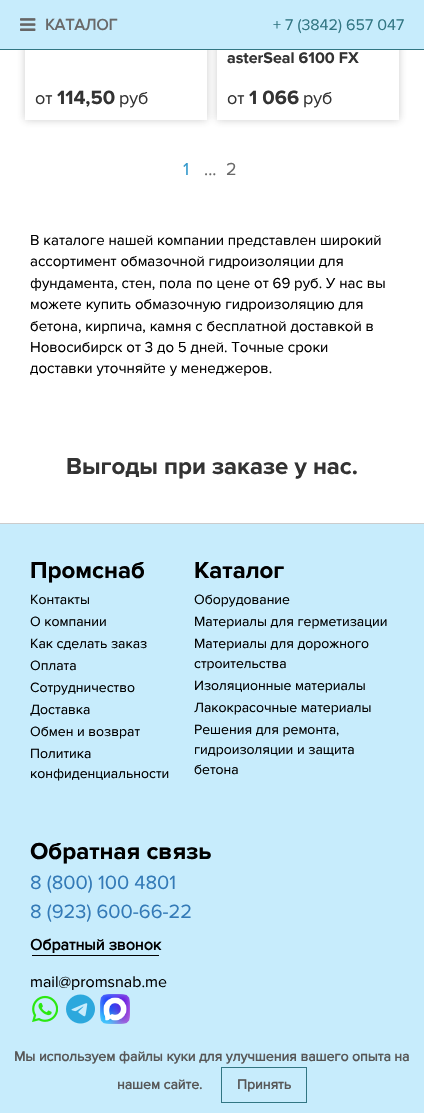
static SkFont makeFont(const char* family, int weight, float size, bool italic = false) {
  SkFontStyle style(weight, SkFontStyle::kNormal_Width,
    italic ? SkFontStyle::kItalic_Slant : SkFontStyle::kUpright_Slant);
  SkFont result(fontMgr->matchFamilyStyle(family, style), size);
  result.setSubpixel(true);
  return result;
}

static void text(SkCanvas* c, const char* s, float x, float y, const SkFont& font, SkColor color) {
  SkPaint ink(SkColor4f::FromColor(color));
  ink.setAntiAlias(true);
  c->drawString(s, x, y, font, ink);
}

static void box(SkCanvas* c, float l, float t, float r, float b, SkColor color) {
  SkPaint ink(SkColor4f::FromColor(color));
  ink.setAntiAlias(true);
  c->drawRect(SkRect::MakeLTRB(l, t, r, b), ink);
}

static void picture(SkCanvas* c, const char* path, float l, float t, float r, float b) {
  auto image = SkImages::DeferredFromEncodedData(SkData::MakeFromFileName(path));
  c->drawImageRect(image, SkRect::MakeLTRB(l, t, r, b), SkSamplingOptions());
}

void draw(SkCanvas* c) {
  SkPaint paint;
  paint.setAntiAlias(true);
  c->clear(0xffffffff);
  c->save();
  c->clipPath(SkPathBuilder(SkPathFillType::kEvenOdd).moveTo(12, 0).lineTo(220, 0).lineTo(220, 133).lineTo(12, 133).close().moveTo(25, -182).lineTo(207, -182).lineTo(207, 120).lineTo(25, 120).close().detach(), true);
  paint.setColor(0x40333333);
  paint.setMaskFilter(SkMaskFilter::MakeBlur(kNormal_SkBlurStyle, 4));
  c->drawRect(SkRect::MakeLTRB(25, -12, 207, 120), paint);
  paint.setMaskFilter(nullptr);
  c->restore();
  c->save();
  c->clipPath(SkPathBuilder(SkPathFillType::kEvenOdd).moveTo(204, 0).lineTo(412, 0).lineTo(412, 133).lineTo(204, 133).close().moveTo(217, -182).lineTo(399, -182).lineTo(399, 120).lineTo(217, 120).close().detach(), true);
  paint.setMaskFilter(SkMaskFilter::MakeBlur(kNormal_SkBlurStyle, 4));
  c->drawRect(SkRect::MakeLTRB(217, -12, 399, 120), paint);
  paint.setMaskFilter(nullptr);
  c->restore();
  box(c, 0, 0, 424, 49, 0xffc7ecfc);
  box(c, 0, 49, 424, 50, 0xff327683);
  picture(c, "img_01.png", 20, 18, 36, 31);
  SkFont face1 = makeFont("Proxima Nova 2", 700, 16);
  text(c, "КАТАЛОГ", 45, 30, face1, 0xff696969);
  SkFont face2 = makeFont("Proxima Nova", 400, 16);
  text(c, "+ 7 (3842) 657 047", 273, 30, face2, 0xff327683);
  SkFont face3 = makeFont("Proxima Nova", 400, 18);
  text(c, "от", 35, 104, face3, 0xff333333);
  SkFont face4 = makeFont("Proxima Nova", 700, 20);
  text(c, "114,50", 57, 104, face4, 0xff333333);
  text(c, "руб", 119, 104, face3, 0xff333333);
  SkFont face5 = makeFont("Proxima Nova", 700, 16);
  text(c, "asterSeal 6100 FX", 227, 63, face5, 0xff333333);
  text(c, "от", 227, 104, face3, 0xff333333);
  text(c, "1 066", 249, 104, face4, 0xff333333);
  text(c, "руб", 303, 104, face3, 0xff333333);
  text(c, "1", 183, 175, face3, 0xff3399cc);
  text(c, "...", 204, 175, face3, 0xff696969);
  text(c, "2", 226, 175, face3, 0xff696969);
  SkFont face6 = makeFont("Proxima Nova", 400, 15);
  text(c, "В каталоге нашей компании представлен широкий", 30, 245, face6, 0xff000000);
  text(c, "ассортимент обмазочной гидроизоляции для", 30, 266, face6, 0xff000000);
  text(c, "фундамента, стен, пола по цене от 69 руб. У нас вы", 30, 288, face6, 0xff000000);
  text(c, "можете купить обмазочную гидроизоляцию для", 30, 309, face6, 0xff000000);
  text(c, "бетона, кирпича, камня с бесплатной доставкой в", 30, 331, face6, 0xff000000);
  text(c, "Новосибирск от 3 до 5 дней. Точные сроки", 30, 352, face6, 0xff000000);
  text(c, "доставки уточняйте у менеджеров.", 30, 373, face6, 0xff000000);
  SkFont face7 = makeFont("Proxima Nova", 700, 24);
  text(c, "Выгоды при заказе у нас.", 66, 474, face7, 0xff333333);
  box(c, 0, 524, 424, 1113, 0xffc7ecfc);
  box(c, 0, 523, 424, 524, 0xffcccccc);
  text(c, "Промснаб", 30, 578, face7, 0xff000000);
  SkFont face8 = makeFont("Proxima Nova", 400, 14);
  text(c, "Контакты", 30, 604, face8, 0xff000000);
  text(c, "О компании", 30, 626, face8, 0xff000000);
  text(c, "Как сделать заказ", 30, 648, face8, 0xff000000);
  text(c, "Оплата", 30, 670, face8, 0xff000000);
  text(c, "Сотрудничество", 30, 692, face8, 0xff000000);
  text(c, "Доставка", 30, 714, face8, 0xff000000);
  text(c, "Обмен и возврат", 30, 736, face8, 0xff000000);
  text(c, "Политика", 30, 758, face8, 0xff000000);
  text(c, "конфиденциальности", 30, 778, face8, 0xff000000);
  text(c, "Каталог", 194, 578, face7, 0xff000000);
  text(c, "Оборудование", 194, 604, face8, 0xff000000);
  text(c, "Материалы для герметизации", 194, 626, face8, 0xff000000);
  text(c, "Материалы для дорожного", 194, 648, face8, 0xff000000);
  text(c, "строительства", 194, 668, face8, 0xff000000);
  text(c, "Изоляционные материалы", 194, 690, face8, 0xff000000);
  text(c, "Лакокрасочные материалы", 194, 712, face8, 0xff000000);
  text(c, "Решения для ремонта,", 194, 734, face8, 0xff000000);
  text(c, "гидроизоляции и защита", 194, 754, face8, 0xff000000);
  text(c, "бетона", 194, 774, face8, 0xff000000);
  text(c, "Обратная связь", 30, 859, face7, 0xff000000);
  SkFont face9 = makeFont("Proxima Nova", 400, 20);
  text(c, "8 (800) 100 4801", 30, 889, face9, 0xff337ab7);
  text(c, "8 (923) 600-66-22", 30, 918, face9, 0xff337ab7);
  text(c, "Обратный звонок", 30, 950, face1, 0xff000000);
  box(c, 32, 955, 159, 956, 0xff000000);
  text(c, "mail@promsnab.me", 30, 987, face2, 0xff000000);
  picture(c, "img_02.png", 32, 995, 58, 1022);
  picture(c, "img_03.png", 66, 994, 95, 1024);
  picture(c, "img_04.png", 100, 994, 130, 1024);
  SkFont face10 = makeFont("Proxima Nova 2", 700, 14);
  text(c, "Мы используем файлы куки для улучшения вашего опыта на", 14, 1061, face10, 0xff575757);
  text(c, "нашем сайте.", 117, 1089, face10, 0xff575757);
  paint.setStyle(SkPaint::kStroke_Style);
  paint.setStrokeWidth(1);
  paint.setColor(0xff327683);
  c->drawRect(SkRect::MakeLTRB(221.5f, 1067.5f, 306.5f, 1102.5f), paint);
  text(c, "Принять", 237, 1089, face10, 0xff575757);
}
